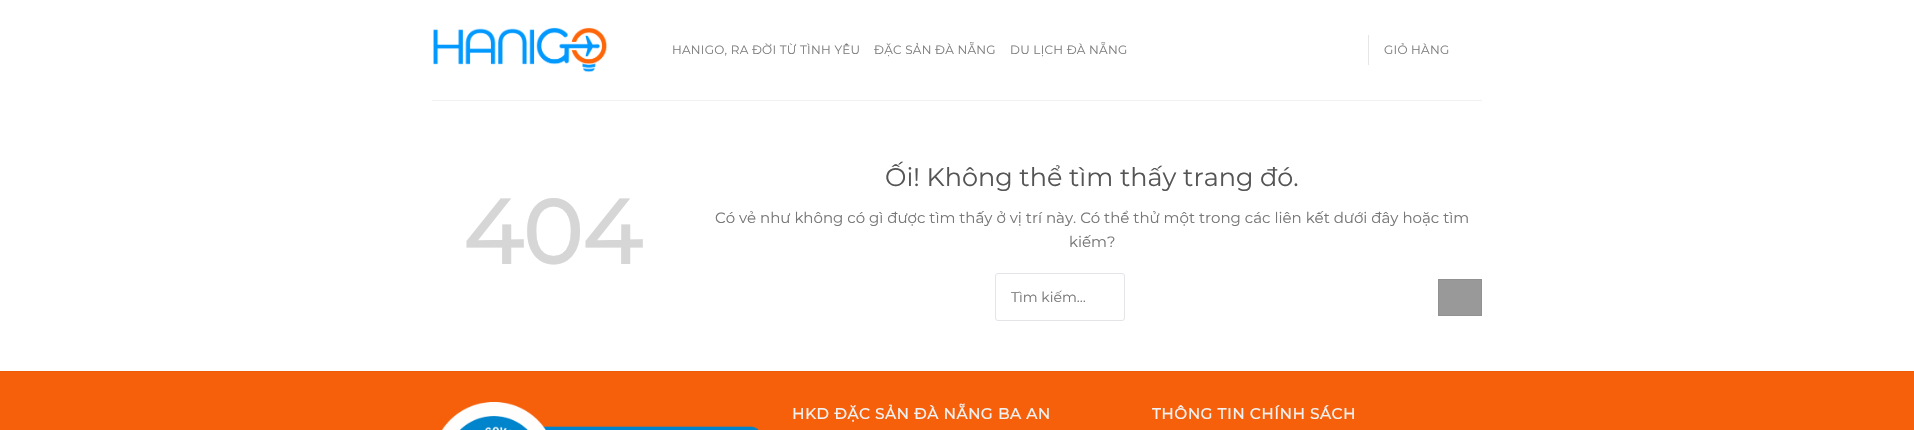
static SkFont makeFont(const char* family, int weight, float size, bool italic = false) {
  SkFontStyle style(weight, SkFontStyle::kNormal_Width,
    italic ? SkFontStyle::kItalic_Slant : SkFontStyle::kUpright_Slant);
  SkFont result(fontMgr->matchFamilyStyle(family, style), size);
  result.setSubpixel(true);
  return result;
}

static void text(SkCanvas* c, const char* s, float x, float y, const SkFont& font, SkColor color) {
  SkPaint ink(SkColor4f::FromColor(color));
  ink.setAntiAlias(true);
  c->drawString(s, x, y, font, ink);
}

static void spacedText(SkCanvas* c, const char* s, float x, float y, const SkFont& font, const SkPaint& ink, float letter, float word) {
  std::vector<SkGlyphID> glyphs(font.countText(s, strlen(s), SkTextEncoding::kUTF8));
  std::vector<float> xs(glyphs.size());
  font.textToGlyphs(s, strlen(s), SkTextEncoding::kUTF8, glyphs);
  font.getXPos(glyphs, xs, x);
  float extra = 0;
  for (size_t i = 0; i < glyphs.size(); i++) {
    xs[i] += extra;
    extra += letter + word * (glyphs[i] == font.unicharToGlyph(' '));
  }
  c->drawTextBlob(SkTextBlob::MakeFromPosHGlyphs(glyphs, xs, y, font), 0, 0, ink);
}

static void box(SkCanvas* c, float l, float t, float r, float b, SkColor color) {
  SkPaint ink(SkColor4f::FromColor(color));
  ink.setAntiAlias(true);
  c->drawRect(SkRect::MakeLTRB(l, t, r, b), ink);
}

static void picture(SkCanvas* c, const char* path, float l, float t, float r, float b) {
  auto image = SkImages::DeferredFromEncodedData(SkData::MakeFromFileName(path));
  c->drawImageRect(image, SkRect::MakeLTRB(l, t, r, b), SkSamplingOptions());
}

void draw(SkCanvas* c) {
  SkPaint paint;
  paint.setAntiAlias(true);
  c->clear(0xffffffff);
  picture(c, "img_01.png", 433, 27, 607, 73);
  SkFont face1 = makeFont("Montserrat", 100, 12);
  paint.setColor(0xff7d7d7d);
  spacedText(c, "HANIGO, RA ĐỜI TỪ TÌNH YÊU", 672, 54, face1, paint, 0.25f, 0);
  spacedText(c, "ĐẶC SẢN ĐÀ NẴNG", 874, 54, face1, paint, 0.25f, 0);
  spacedText(c, "DU LỊCH ĐÀ NẴNG", 1010, 54, face1, paint, 0.25f, 0);
  box(c, 1368, 35, 1369, 65, 0xffe6e6e6);
  spacedText(c, "GIỎ HÀNG", 1384, 54, face1, paint, 0.25f, 0);
  box(c, 432, 100, 1482, 101, 0xfff1f1f1);
  SkFont face2 = makeFont("Montserrat", 700, 90);
  text(c, "404", 463, 264, face2, 0xffd6d6d6);
  SkFont face3 = makeFont("Montserrat", 100, 25.5f);
  text(c, "Ối! Không thể tìm thấy trang đó.", 885, 186, face3, 0xff555555);
  SkFont face4 = makeFont("Montserrat", 100, 15);
  text(c, "Có vẻ như không có gì được tìm thấy ở vị trí này. Có thể thử một trong các liên kết dưới đây hoặc tìm", 715, 223, face4, 0xff777777);
  text(c, "kiếm?", 1069, 247, face4, 0xff777777);
  paint.setStyle(SkPaint::kStroke_Style);
  paint.setStrokeWidth(1);
  paint.setColor(0xffe2e4e8);
  c->drawRoundRect(SkRect::MakeLTRB(995.5f, 273.5f, 1124.5f, 320.5f), 2.5f, 2.5f, paint);
  SkFont face5 = makeFont("Montserrat", 100, 14);
  text(c, "Tìm kiếm…", 1011, 302, face5, 0xff777777);
  paint.setStyle(SkPaint::kFill_Style);
  paint.setColor(0xff999999);
  c->drawRect(SkRect::MakeLTRB(1438.5f, 279.5f, 1481.5f, 315.5f), paint);
  paint.setStyle(SkPaint::kStroke_Style);
  paint.setColor(0xff919191);
  c->drawRect(SkRect::MakeLTRB(1438.5f, 279.5f, 1481.5f, 315.5f), paint);
  box(c, 0, 372, 1914, 430, 0xfff6600a);
  box(c, 0, 371, 1914, 372, 0xffea5b0a);
  picture(c, "img_02.png", 442, 402, 759, 430);
  SkFont face6 = makeFont("Montserrat", 700, 15);
  paint.setStyle(SkPaint::kFill_Style);
  paint.setColor(0xfff1f1f1);
  spacedText(c, "HKD ĐẶC SẢN ĐÀ NẴNG BA AN", 792, 419, face6, paint, 0.75f, 0);
  spacedText(c, "THÔNG TIN CHÍNH SÁCH", 1152, 419, face6, paint, 0.75f, 0);
}
